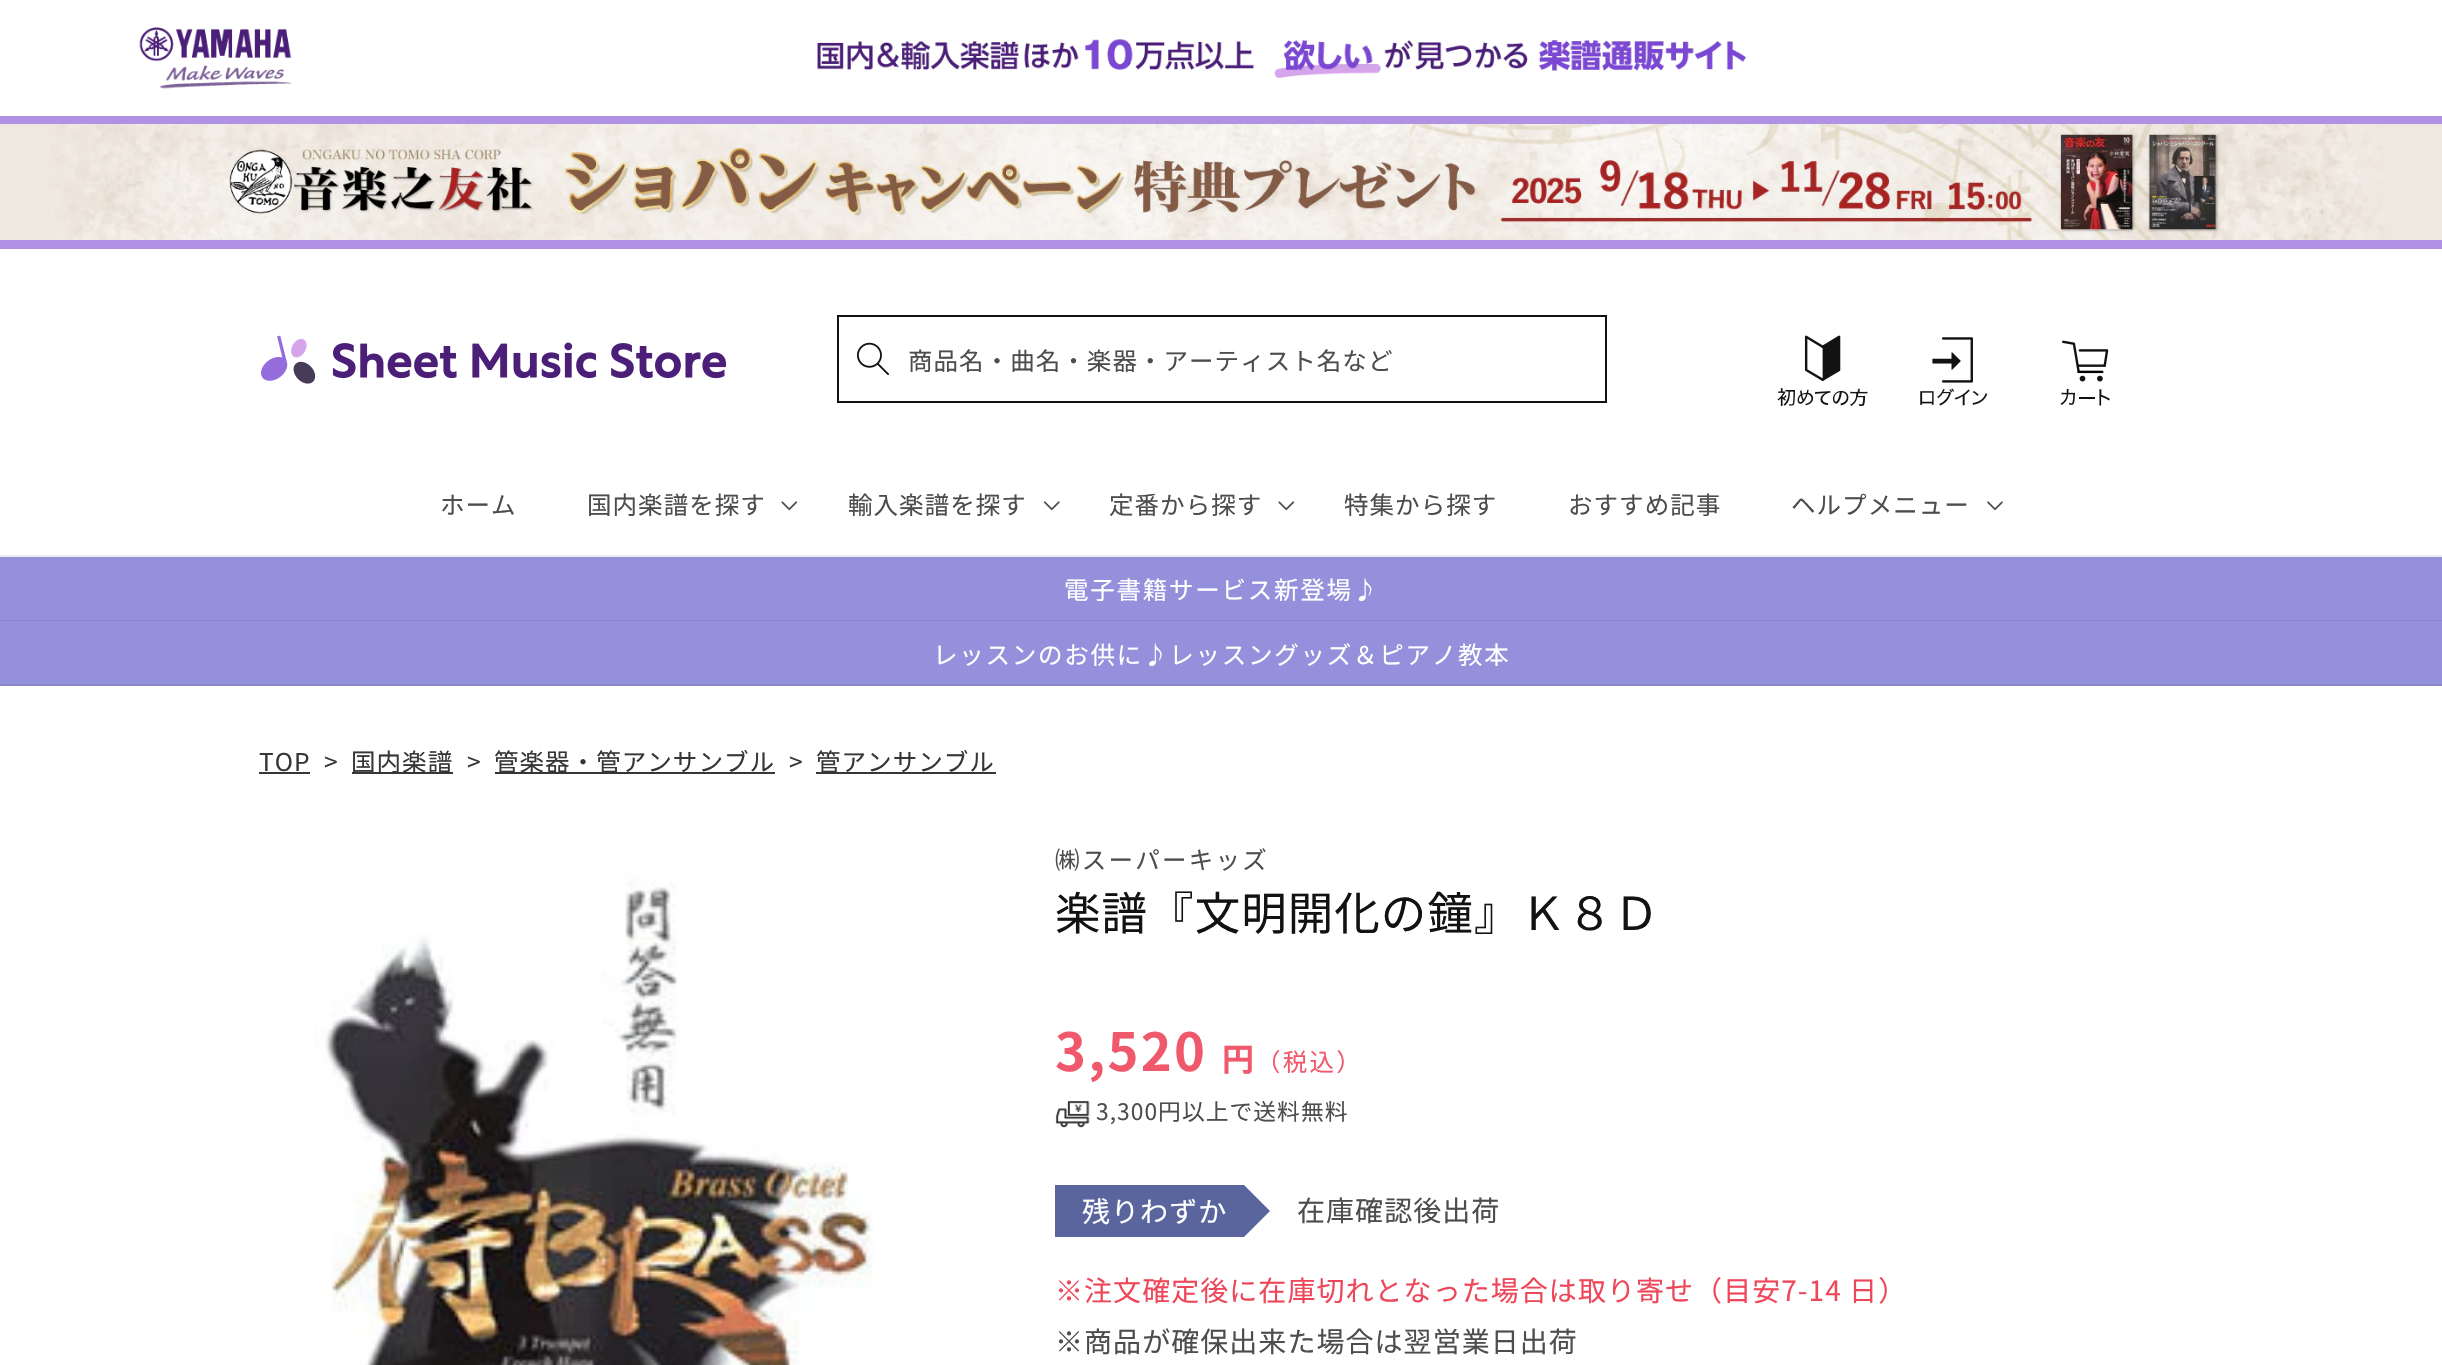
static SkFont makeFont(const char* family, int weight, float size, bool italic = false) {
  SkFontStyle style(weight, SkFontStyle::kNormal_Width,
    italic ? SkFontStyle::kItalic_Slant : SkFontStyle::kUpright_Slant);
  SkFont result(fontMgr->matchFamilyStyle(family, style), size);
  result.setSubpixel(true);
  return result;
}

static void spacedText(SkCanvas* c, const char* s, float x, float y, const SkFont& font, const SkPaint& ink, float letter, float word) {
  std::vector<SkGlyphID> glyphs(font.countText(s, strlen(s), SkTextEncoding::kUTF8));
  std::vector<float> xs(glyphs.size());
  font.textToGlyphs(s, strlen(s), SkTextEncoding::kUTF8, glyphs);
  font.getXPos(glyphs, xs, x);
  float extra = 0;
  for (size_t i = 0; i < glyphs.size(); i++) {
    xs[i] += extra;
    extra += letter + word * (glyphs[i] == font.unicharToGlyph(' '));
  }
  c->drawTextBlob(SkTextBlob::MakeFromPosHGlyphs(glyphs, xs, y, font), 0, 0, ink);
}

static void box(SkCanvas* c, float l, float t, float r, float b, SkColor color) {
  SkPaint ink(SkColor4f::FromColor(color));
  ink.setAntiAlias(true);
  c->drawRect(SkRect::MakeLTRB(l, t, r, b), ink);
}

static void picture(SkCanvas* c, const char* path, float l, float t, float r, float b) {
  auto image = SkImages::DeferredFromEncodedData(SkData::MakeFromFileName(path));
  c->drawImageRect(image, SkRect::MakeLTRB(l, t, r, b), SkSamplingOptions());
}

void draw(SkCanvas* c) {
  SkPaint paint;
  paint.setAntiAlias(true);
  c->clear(0xffffffff);
  box(c, 0, 116, 2442, 124, 0xffb091e4);
  picture(c, "img_01.png", 139, 27, 1746, 89);
  box(c, 0, 124, 2442, 240, 0xffeee8e0);
  box(c, 0, 240, 2442, 249, 0xffb091e4);
  picture(c, "img_02.png", 51, 124, 2385, 240);
  box(c, 0, 555, 2442, 557, 0xffececec);
  picture(c, "img_03.png", 261, 335, 727, 384);
  paint.setStyle(SkPaint::kStroke_Style);
  paint.setStrokeWidth(2);
  paint.setColor(0xff121212);
  c->drawRect(SkRect::MakeLTRB(838, 316, 1606, 402), paint);
  picture(c, "img_04.png", 857, 342, 889, 376);
  SkFont face1 = makeFont("Noto Sans JP", 400, 24.5f);
  paint.setStyle(SkPaint::kFill_Style);
  paint.setColor(0xff4d4d4d);
  spacedText(c, "商品名・曲名・楽器・アーティスト名など", 908, 370, face1, paint, 1.05f, 0);
  picture(c, "img_05.png", 1777, 335, 1868, 406);
  picture(c, "img_06.png", 1920, 337, 1988, 406);
  picture(c, "img_07.png", 2060, 340, 2110, 406);
  spacedText(c, "ホーム", 440, 514, face1, paint, 1.05f, 0);
  spacedText(c, "国内楽譜を探す", 587, 514, face1, paint, 1.05f, 0);
  picture(c, "img_08.png", 781, 501, 798, 511);
  spacedText(c, "輸入楽譜を探す", 848, 514, face1, paint, 1.05f, 0);
  picture(c, "img_09.png", 1043, 501, 1060, 511);
  spacedText(c, "定番から探す", 1109, 514, face1, paint, 1.05f, 0);
  picture(c, "img_08.png", 1278, 501, 1295, 511);
  spacedText(c, "特集から探す", 1344, 514, face1, paint, 1.05f, 0);
  spacedText(c, "おすすめ記事", 1568, 514, face1, paint, 1.05f, 0);
  spacedText(c, "ヘルプメニュー", 1791, 514, face1, paint, 1.05f, 0);
  picture(c, "img_10.png", 1987, 501, 2003, 510);
  box(c, 0, 557, 2442, 620, 0xff9590db);
  box(c, 0, 620, 2442, 621, 0xff8b86cb);
  paint.setColor(0xffffffff);
  spacedText(c, "電子書籍サービス新登場♪", 1064, 599, face1, paint, 1.75f, 0);
  box(c, 0, 621, 2442, 684, 0xff9590db);
  box(c, 0, 684, 2442, 686, 0xff8b86cb);
  spacedText(c, "レッスンのお供に♪レッスングッズ＆ピアノ教本", 933, 664, face1, paint, 1.75f, 0);
  paint.setColor(0xff363636);
  spacedText(c, "TOP", 259, 771, face1, paint, 1.05f, 0);
  box(c, 259, 772, 310, 774, 0xff363636);
  spacedText(c, ">", 324, 771, face1, paint, 1.05f, 0);
  box(c, 352, 772, 453, 774, 0xff363636);
  spacedText(c, "国内楽譜", 351, 771, face1, paint, 1.05f, 0);
  spacedText(c, ">", 467, 771, face1, paint, 1.05f, 0);
  box(c, 495, 772, 775, 774, 0xff363636);
  spacedText(c, "管楽器・管アンサンブル", 494, 771, face1, paint, 1.05f, 0);
  spacedText(c, ">", 789, 771, face1, paint, 1.05f, 0);
  box(c, 816, 772, 996, 774, 0xff363636);
  spacedText(c, "管アンサンブル", 816, 771, face1, paint, 1.05f, 0);
  picture(c, "img_11.png", 315, 874, 874, 1365);
  paint.setColor(0xff4d4d4d);
  spacedText(c, "㈱スーパーキッズ", 1055, 869, face1, paint, 2.25f, 0);
  SkFont face2 = makeFont("Noto Sans JP", 400, 45.5f);
  paint.setColor(0xff121212);
  spacedText(c, "楽譜『文明開化の鐘』Ｋ８Ｄ", 1055, 930, face2, paint, 1.05f, 0);
  SkFont face3 = makeFont("Noto Sans JP", 700, 52.5f);
  paint.setColor(0xffef596b);
  spacedText(c, "3,520", 1055, 1071, face3, paint, 2.25f, 0);
  SkFont face4 = makeFont("Noto Sans JP", 700, 32);
  spacedText(c, "円", 1222, 1071, face4, paint, 2.25f, 0);
  spacedText(c, "（税込）", 1256, 1071, face1, paint, 2.25f, 0);
  picture(c, "img_12.png", 1055, 1101, 1090, 1128);
  SkFont face5 = makeFont("Noto Sans JP", 400, 22.75f);
  paint.setColor(0xff4d4d4d);
  spacedText(c, "3,300円以上で送料無料", 1096, 1120, face5, paint, 1.05f, 0);
  box(c, 1055, 1185, 1244, 1237, 0xff5a659e);
  SkFont face6 = makeFont("Noto Sans JP", 400, 28);
  paint.setColor(0xffffffff);
  spacedText(c, "残りわずか", 1082, 1222, face6, paint, 1.05f, 0);
  paint.setColor(0xff5a659e);
  c->drawPath(SkPathBuilder().moveTo(1244, 1237).lineTo(1244, 1185).lineTo(1270, 1211).close().detach(), paint);
  paint.setColor(0xff4d4d4d);
  spacedText(c, "在庫確認後出荷", 1297, 1221, face6, paint, 1.05f, 0);
  paint.setColor(0xffee475a);
  spacedText(c, "※注文確定後に在庫切れとなった場合は取り寄せ（目安7-14 日）", 1055, 1301, face6, paint, 1.05f, 0);
  paint.setColor(0xff4d4d4d);
  spacedText(c, "※商品が確保出来た場合は翌営業日出荷", 1055, 1352, face6, paint, 1.05f, 0);
}
